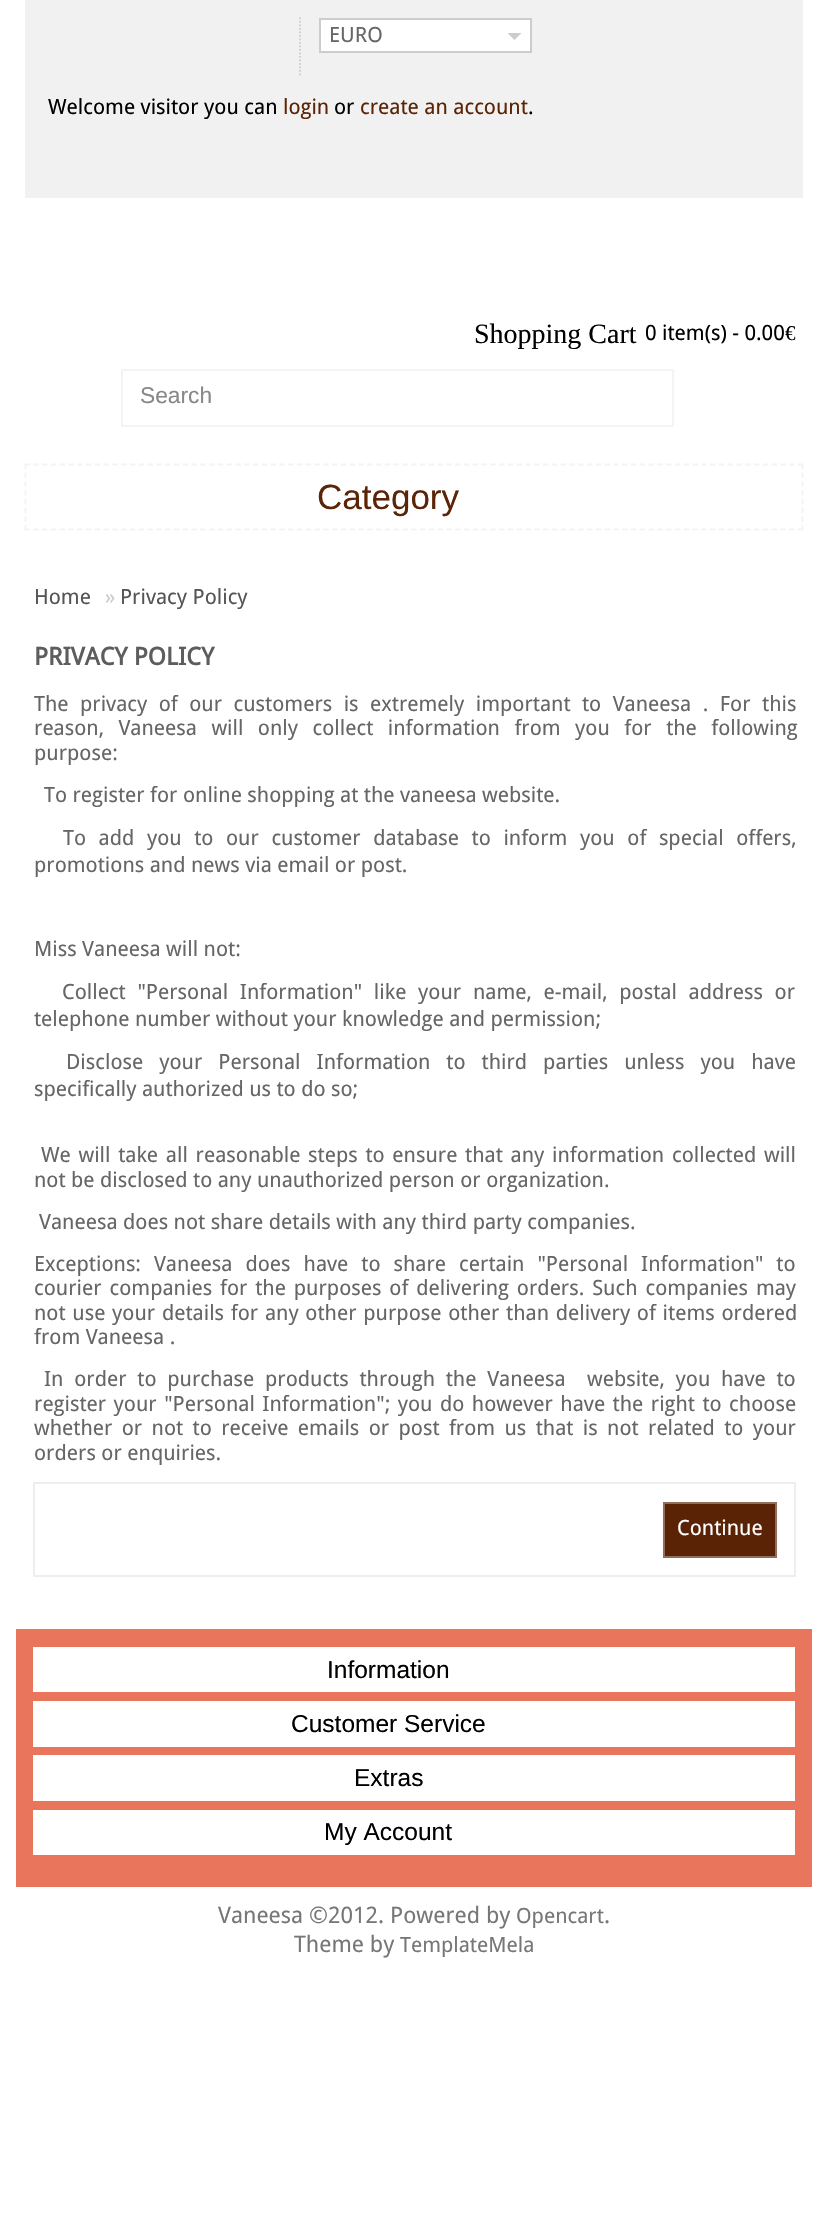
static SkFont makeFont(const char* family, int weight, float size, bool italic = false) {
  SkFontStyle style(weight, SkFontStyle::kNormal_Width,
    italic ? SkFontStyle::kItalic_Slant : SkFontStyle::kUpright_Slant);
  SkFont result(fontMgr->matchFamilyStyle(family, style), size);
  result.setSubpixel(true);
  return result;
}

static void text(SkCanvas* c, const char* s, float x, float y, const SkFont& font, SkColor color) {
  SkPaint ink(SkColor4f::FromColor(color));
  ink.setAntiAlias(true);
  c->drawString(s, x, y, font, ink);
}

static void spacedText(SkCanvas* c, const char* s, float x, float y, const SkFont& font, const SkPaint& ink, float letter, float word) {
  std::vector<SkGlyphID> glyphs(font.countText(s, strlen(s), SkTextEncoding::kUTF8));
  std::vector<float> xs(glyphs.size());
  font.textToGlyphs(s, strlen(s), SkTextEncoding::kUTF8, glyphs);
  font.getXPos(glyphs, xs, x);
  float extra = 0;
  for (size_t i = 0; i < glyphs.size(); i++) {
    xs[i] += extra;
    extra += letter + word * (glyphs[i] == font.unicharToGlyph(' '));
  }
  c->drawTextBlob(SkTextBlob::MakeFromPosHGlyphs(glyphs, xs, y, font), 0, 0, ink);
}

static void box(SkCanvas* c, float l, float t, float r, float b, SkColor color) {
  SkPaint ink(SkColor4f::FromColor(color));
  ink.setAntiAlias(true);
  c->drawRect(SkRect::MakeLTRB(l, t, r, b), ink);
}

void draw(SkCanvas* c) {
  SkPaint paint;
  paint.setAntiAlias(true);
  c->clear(0xffffffff);
  box(c, 25, 0, 803, 198, 0xfff1f1f1);
  paint.setStyle(SkPaint::kStroke_Style);
  paint.setStrokeWidth(1.8f);
  paint.setColor(0xffcdcdcd);
  paint.setPathEffect(SkDashPathEffect::Make({{1.75f, 1.75f}}, 0));
  c->drawPath(SkPathBuilder().moveTo(300, 17.5f).lineTo(300, 77).detach(), paint);
  paint.setPathEffect(nullptr);
  paint.setStyle(SkPaint::kFill_Style);
  paint.setColor(0xffffffff);
  c->drawRect(SkRect::MakeLTRB(320, 19, 531, 52), paint);
  paint.setStyle(SkPaint::kStroke_Style);
  paint.setStrokeWidth(2);
  paint.setColor(0xffcccccc);
  c->drawRect(SkRect::MakeLTRB(320, 19, 531, 52), paint);
  SkFont face1 = makeFont("Droid Sans", 400, 21);
  text(c, "EURO", 329, 42, face1, 0xff666666);
  paint.setStyle(SkPaint::kFill_Style);
  c->drawPath(SkPathBuilder().moveTo(507.5f, 33).lineTo(521.5f, 33).lineTo(514.5f, 40).close().detach(), paint);
  text(c, "Welcome visitor you can", 48, 114, face1, 0xff000000);
  text(c, "login", 283, 114, face1, 0xff5b2406);
  text(c, "or", 334, 114, face1, 0xff000000);
  text(c, "create an account", 360, 114, face1, 0xff5b2406);
  text(c, ".", 528, 114, face1, 0xff000000);
  SkFont face2 = makeFont("Liberation Serif", 400, 28);
  text(c, "Shopping Cart", 474, 343, face2, 0xff000000);
  text(c, "0 item(s) - 0.00", 645, 340, face1, 0xff000000);
  SkFont face3 = makeFont("Liberation Serif", 400, 21);
  text(c, "€", 785, 340, face3, 0xff000000);
  paint.setStyle(SkPaint::kStroke_Style);
  paint.setColor(0xfff4f4f4);
  c->drawRect(SkRect::MakeLTRB(122, 370, 673, 426), paint);
  SkFont face4 = makeFont("Liberation Sans", 400, 22.75f);
  text(c, "Search", 140, 403, face4, 0xff888888);
  paint.setStrokeWidth(1.8f);
  paint.setColor(0xfff3f3f3);
  paint.setPathEffect(SkDashPathEffect::Make({{5.25f, 3.54f}}, 0));
  c->drawPath(SkPathBuilder().moveTo(24.5f, 464.5f).lineTo(803, 464.5f).detach(), paint);
  paint.setPathEffect(nullptr);
  paint.setPathEffect(SkDashPathEffect::Make({{5.25f, 3.5f}}, 0));
  c->drawPath(SkPathBuilder().moveTo(802.5f, 464).lineTo(802.5f, 530).detach(), paint);
  paint.setPathEffect(nullptr);
  paint.setPathEffect(SkDashPathEffect::Make({{5.25f, 3.54f}}, 0));
  c->drawPath(SkPathBuilder().moveTo(24.5f, 529.5f).lineTo(803, 529.5f).detach(), paint);
  paint.setPathEffect(nullptr);
  paint.setPathEffect(SkDashPathEffect::Make({{5.25f, 3.5f}}, 0));
  c->drawPath(SkPathBuilder().moveTo(25.5f, 464).lineTo(25.5f, 530).detach(), paint);
  paint.setPathEffect(nullptr);
  SkFont face5 = makeFont("Liberation Sans", 400, 35);
  text(c, "Category", 317, 509, face5, 0xff5b2406);
  text(c, "Home", 34, 604, face1, 0xff555555);
  text(c, "»", 105, 604, face1, 0xffcccccc);
  text(c, "Privacy Policy", 120, 604, face1, 0xff555555);
  SkFont face6 = makeFont("Droid Sans", 700, 24.5f);
  text(c, "PRIVACY POLICY", 34, 665, face6, 0xff5d5d5d);
  paint.setStyle(SkPaint::kFill_Style);
  paint.setColor(0xff666666);
  spacedText(c, "The privacy of our customers is extremely important to Vaneesa . For this", 34, 711, face1, paint, 0, 6);
  spacedText(c, "reason, Vaneesa will only collect information from you for the following", 34, 735, face1, paint, 0, 9);
  text(c, "purpose:", 34, 760, face1, 0xff666666);
  text(c, "To register for online shopping at the vaneesa website.", 44, 802, face1, 0xff666666);
  spacedText(c, "To add you to our customer database to inform you of special offers,", 63, 845, face1, paint, 0, 7.1f);
  text(c, "promotions and news via email or post.", 34, 872, face1, 0xff666666);
  text(c, "Miss Vaneesa will not:", 34, 956, face1, 0xff666666);
  spacedText(c, "Collect \"Personal Information\" like your name, e-mail, postal address or", 62, 999, face1, paint, 0, 6.25f);
  text(c, "telephone number without your knowledge and permission;", 34, 1026, face1, 0xff666666);
  spacedText(c, "Disclose your Personal Information to third parties unless you have", 66, 1069, face1, paint, 0, 10.5f);
  text(c, "specifically authorized us to do so;", 34, 1096, face1, 0xff666666);
  spacedText(c, "We will take all reasonable steps to ensure that any information collected will", 41, 1162, face1, paint, 0, 2.25f);
  text(c, "not be disclosed to any unauthorized person or organization.", 34, 1187, face1, 0xff666666);
  text(c, "Vaneesa does not share details with any third party companies.", 39, 1229, face1, 0xff666666);
  spacedText(c, "Exceptions: Vaneesa does have to share certain \"Personal Information\" to", 34, 1271, face1, paint, 0, 7.5f);
  spacedText(c, "courier companies for the purposes of delivering orders. Such companies may", 34, 1295, face1, paint, 0, 2.4f);
  spacedText(c, "not use your details for any other purpose other than delivery of items ordered", 34, 1320, face1, paint, 0, 1.25f);
  text(c, "from Vaneesa .", 34, 1344, face1, 0xff666666);
  spacedText(c, "In order to purchase products through the Vaneesa  website, you have to", 44, 1386, face1, paint, 0, 5.25f);
  spacedText(c, "register your \"Personal Information\"; you do however have the right to choose", 34, 1411, face1, paint, 0, 2);
  spacedText(c, "whether or not to receive emails or post from us that is not related to your", 34, 1435, face1, paint, 0, 3.9f);
  text(c, "orders or enquiries.", 34, 1460, face1, 0xff666666);
  paint.setStyle(SkPaint::kStroke_Style);
  paint.setStrokeWidth(2);
  paint.setColor(0xffeeeeee);
  c->drawRect(SkRect::MakeLTRB(34, 1483, 795, 1576), paint);
  paint.setStyle(SkPaint::kFill_Style);
  paint.setColor(0xff5a2305);
  c->drawRect(SkRect::MakeLTRB(664, 1503, 776, 1557), paint);
  paint.setStyle(SkPaint::kStroke_Style);
  paint.setColor(0xff926e5a);
  c->drawRect(SkRect::MakeLTRB(664, 1503, 776, 1557), paint);
  text(c, "Continue", 677, 1535, face1, 0xffffffff);
  box(c, 16, 1629, 812, 1887, 0xffe8755c);
  box(c, 33, 1647, 795, 1692, 0xffffffff);
  SkFont face7 = makeFont("Liberation Sans", 400, 24.5f);
  text(c, "Information", 327, 1678, face7, 0xff000000);
  box(c, 33, 1701, 795, 1747, 0xffffffff);
  text(c, "Customer Service", 291, 1732, face7, 0xff000000);
  box(c, 33, 1755, 795, 1801, 0xffffffff);
  text(c, "Extras", 354, 1786, face7, 0xff000000);
  box(c, 33, 1810, 795, 1855, 0xffffffff);
  text(c, "My Account", 324, 1840, face7, 0xff000000);
  SkFont face8 = makeFont("Droid Sans", 400, 22.75f);
  text(c, "Vaneesa ©2012. Powered by", 218, 1923, face8, 0xff777777);
  text(c, "Opencart", 516, 1923, face1, 0xff777777);
  text(c, ".", 604, 1923, face8, 0xff777777);
  text(c, "Theme by", 294, 1952, face8, 0xff777777);
  text(c, "TemplateMela", 400, 1952, face1, 0xff777777);
}
